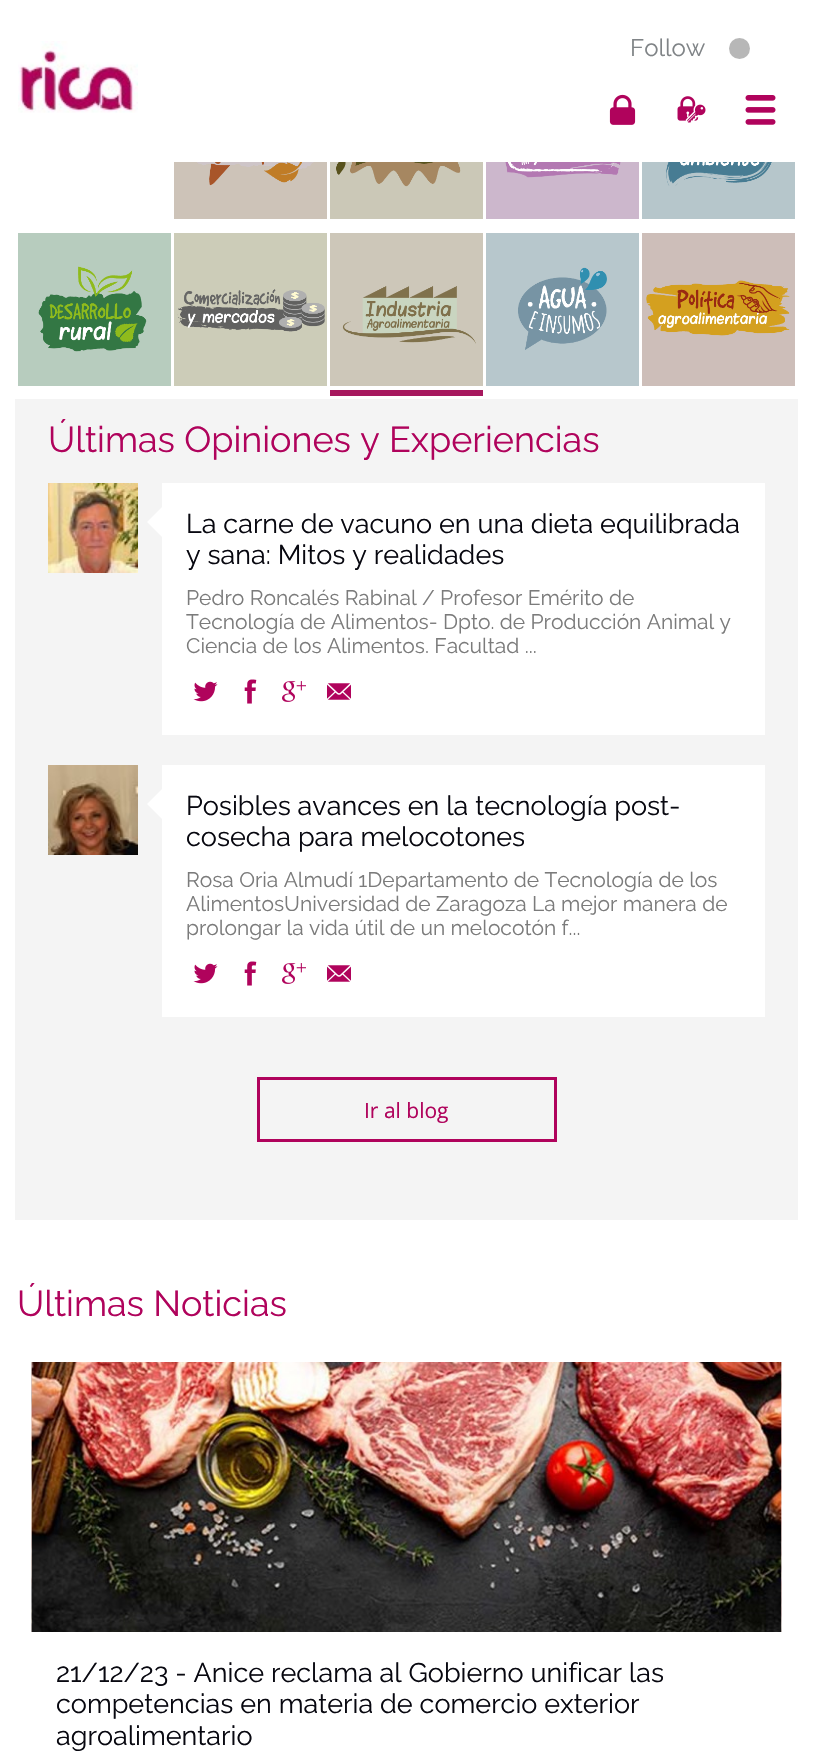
static SkFont makeFont(const char* family, int weight, float size, bool italic = false) {
  SkFontStyle style(weight, SkFontStyle::kNormal_Width,
    italic ? SkFontStyle::kItalic_Slant : SkFontStyle::kUpright_Slant);
  SkFont result(fontMgr->matchFamilyStyle(family, style), size);
  result.setSubpixel(true);
  return result;
}

static void text(SkCanvas* c, const char* s, float x, float y, const SkFont& font, SkColor color) {
  SkPaint ink(SkColor4f::FromColor(color));
  ink.setAntiAlias(true);
  c->drawString(s, x, y, font, ink);
}

static void box(SkCanvas* c, float l, float t, float r, float b, SkColor color) {
  SkPaint ink(SkColor4f::FromColor(color));
  ink.setAntiAlias(true);
  c->drawRect(SkRect::MakeLTRB(l, t, r, b), ink);
}

static void picture(SkCanvas* c, const char* path, float l, float t, float r, float b) {
  auto image = SkImages::DeferredFromEncodedData(SkData::MakeFromFileName(path));
  c->drawImageRect(image, SkRect::MakeLTRB(l, t, r, b), SkSamplingOptions());
}

void draw(SkCanvas* c) {
  SkPaint paint;
  paint.setAntiAlias(true);
  c->clear(0xffffffff);
  picture(c, "img_01.png", 18, 41, 138, 113);
  SkFont face1 = makeFont("Raleway", 400, 24);
  text(c, "Follow", 630, 56, face1, 0xff808487);
  paint.setColor(0xffb7b7b7);
  c->drawCircle(739.5f, 48.5f, 10.5f, paint);
  picture(c, "img_02.png", 609, 94, 636, 125);
  picture(c, "img_03.png", 677, 96, 706, 123);
  picture(c, "img_04.png", 745, 95, 776, 125);
  box(c, 174, 162, 327, 219, 0xffcdc3b8);
  picture(c, "img_05.png", 197, 162, 314, 186);
  box(c, 330, 162, 483, 219, 0xffcbc8b7);
  picture(c, "img_06.png", 336, 162, 461, 187);
  box(c, 486, 162, 639, 219, 0xffccb7cc);
  picture(c, "img_07.png", 505, 162, 621, 178);
  box(c, 642, 162, 795, 219, 0xffb6c6cb);
  picture(c, "img_08.png", 666, 162, 772, 186);
  box(c, 18, 233, 171, 386, 0xffb7ccbe);
  picture(c, "img_09.png", 38, 266, 147, 352);
  box(c, 174, 233, 327, 386, 0xffccccb8);
  picture(c, "img_10.png", 177, 289, 325, 332);
  box(c, 330, 390, 483, 396, 0xffa7185e);
  box(c, 330, 233, 483, 386, 0xffcdc7b9);
  picture(c, "img_11.png", 342, 286, 476, 344);
  box(c, 486, 233, 639, 386, 0xffb7c7cc);
  picture(c, "img_12.png", 518, 267, 607, 350);
  box(c, 642, 233, 795, 386, 0xffcdbeb9);
  picture(c, "img_13.png", 646, 280, 790, 336);
  box(c, 15, 399, 798, 1220, 0xfff4f4f4);
  SkFont face2 = makeFont("Raleway", 400, 36);
  text(c, "Últimas Opiniones y Experiencias", 48, 452, face2, 0xffb0035c);
  picture(c, "img_14.png", 48, 483, 138, 573);
  box(c, 162, 483, 765, 735, 0xffffffff);
  paint.setColor(0xffffffff);
  c->drawPath(SkPathBuilder().moveTo(162, 507).lineTo(162, 537).lineTo(147, 522).close().detach(), paint);
  SkFont face3 = makeFont("Raleway", 400, 27);
  text(c, "La carne de vacuno en una dieta equilibrada", 186, 533, face3, 0xff080810);
  text(c, "y sana: Mitos y realidades", 186, 564, face3, 0xff080810);
  SkFont face4 = makeFont("Raleway", 400, 21);
  text(c, "Pedro Roncalés Rabinal / Profesor Emérito de", 186, 605, face4, 0xff7b7b7b);
  text(c, "Tecnología de Alimentos- Dpto. de Producción Animal y", 186, 629, face4, 0xff7b7b7b);
  text(c, "Ciencia de los Alimentos. Facultad ...", 186, 653, face4, 0xff7b7b7b);
  picture(c, "img_15.png", 193, 681, 218, 702);
  picture(c, "img_16.png", 244, 679, 257, 704);
  picture(c, "img_17.png", 282, 681, 306, 702);
  picture(c, "img_18.png", 327, 683, 351, 700);
  picture(c, "img_19.png", 48, 765, 138, 855);
  box(c, 162, 765, 765, 1017, 0xffffffff);
  c->drawPath(SkPathBuilder().moveTo(162, 789).lineTo(162, 819).lineTo(147, 804).close().detach(), paint);
  text(c, "Posibles avances en la tecnología post-", 186, 815, face3, 0xff080810);
  text(c, "cosecha para melocotones", 186, 846, face3, 0xff080810);
  text(c, "Rosa Oria Almudí 1Departamento de Tecnología de los", 186, 887, face4, 0xff7b7b7b);
  text(c, "AlimentosUniversidad de Zaragoza La mejor manera de", 186, 911, face4, 0xff7b7b7b);
  text(c, "prolongar la vida útil de un melocotón f...", 186, 935, face4, 0xff7b7b7b);
  picture(c, "img_15.png", 193, 963, 218, 984);
  picture(c, "img_16.png", 244, 961, 257, 986);
  picture(c, "img_17.png", 282, 963, 306, 984);
  picture(c, "img_18.png", 327, 965, 351, 982);
  paint.setStyle(SkPaint::kStroke_Style);
  paint.setStrokeWidth(3);
  paint.setColor(0xffb0035c);
  c->drawRect(SkRect::MakeLTRB(258.5f, 1078.5f, 555.5f, 1140.5f), paint);
  SkFont face5 = makeFont("Open Sans", 400, 21);
  text(c, "Ir al blog", 364, 1118, face5, 0xffb0035c);
  text(c, "Últimas Noticias", 17, 1316, face2, 0xffb0035c);
  picture(c, "img_20.png", 31, 1362, 782, 1632);
  picture(c, "img_21.png", 31, 1362, 782, 1632);
  text(c, "21/12/23 - Anice reclama al Gobierno unificar las", 56, 1682, face3, 0xff080810);
  text(c, "competencias en materia de comercio exterior", 56, 1713, face3, 0xff080810);
  text(c, "agroalimentario", 56, 1745, face3, 0xff080810);
}
